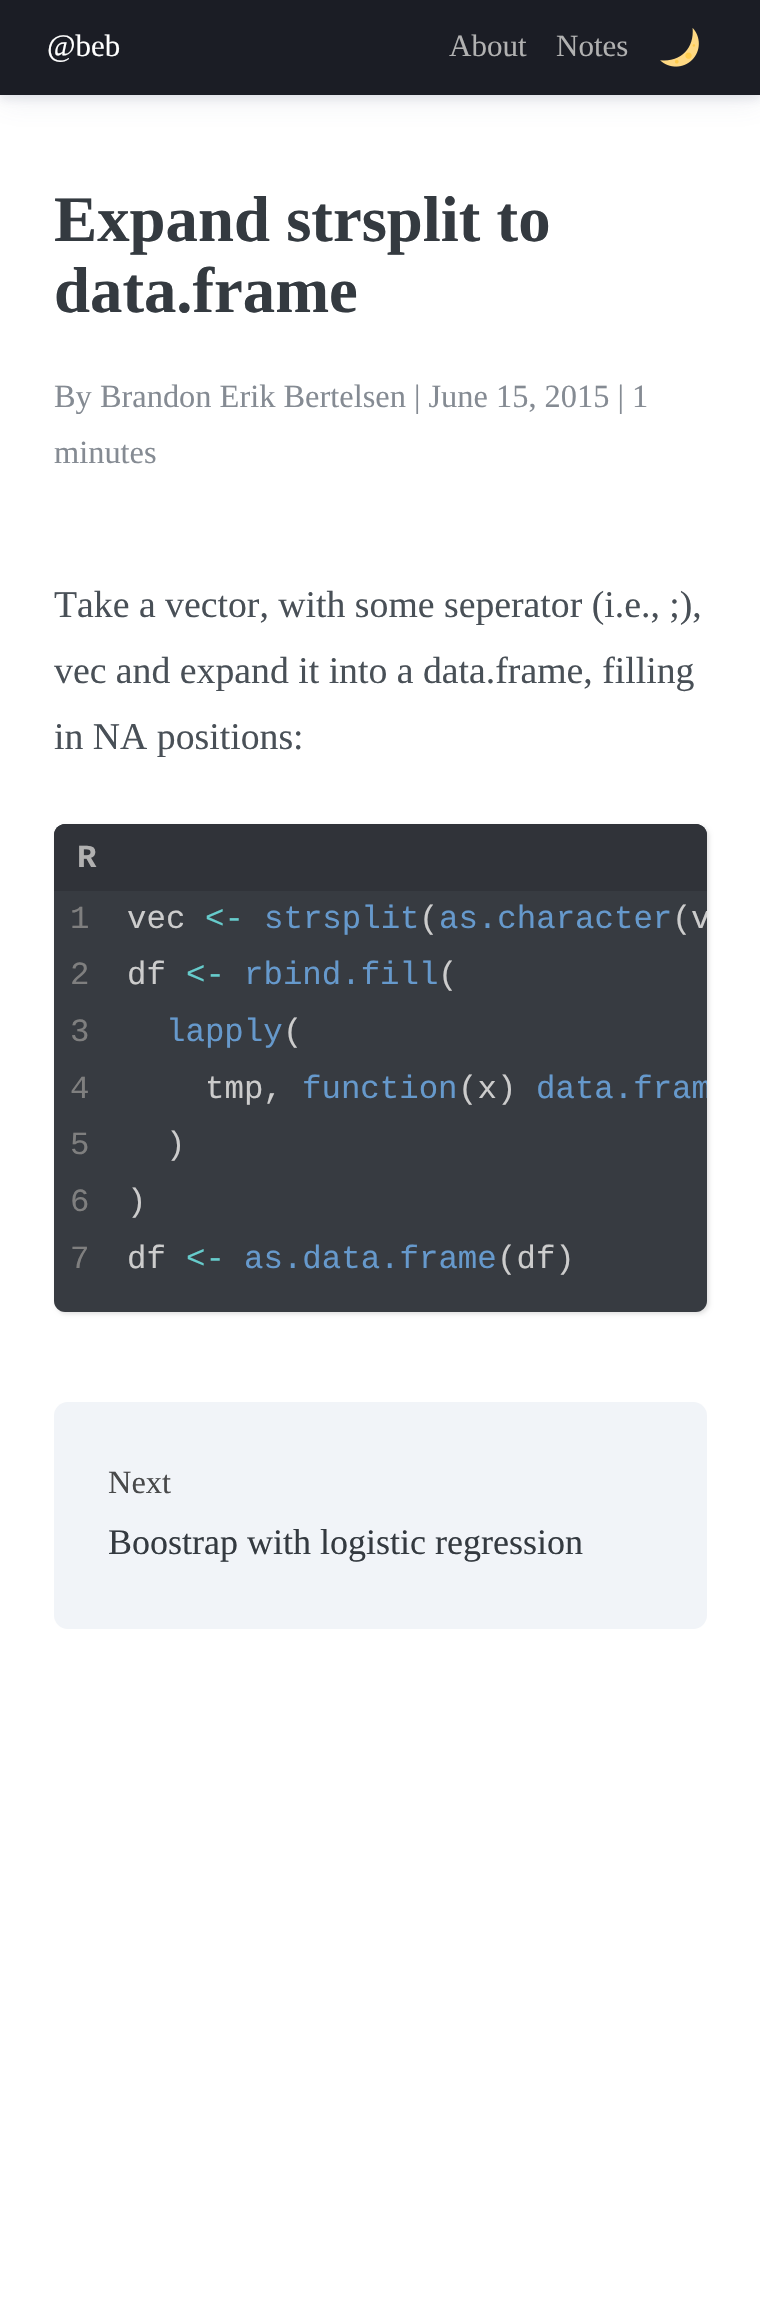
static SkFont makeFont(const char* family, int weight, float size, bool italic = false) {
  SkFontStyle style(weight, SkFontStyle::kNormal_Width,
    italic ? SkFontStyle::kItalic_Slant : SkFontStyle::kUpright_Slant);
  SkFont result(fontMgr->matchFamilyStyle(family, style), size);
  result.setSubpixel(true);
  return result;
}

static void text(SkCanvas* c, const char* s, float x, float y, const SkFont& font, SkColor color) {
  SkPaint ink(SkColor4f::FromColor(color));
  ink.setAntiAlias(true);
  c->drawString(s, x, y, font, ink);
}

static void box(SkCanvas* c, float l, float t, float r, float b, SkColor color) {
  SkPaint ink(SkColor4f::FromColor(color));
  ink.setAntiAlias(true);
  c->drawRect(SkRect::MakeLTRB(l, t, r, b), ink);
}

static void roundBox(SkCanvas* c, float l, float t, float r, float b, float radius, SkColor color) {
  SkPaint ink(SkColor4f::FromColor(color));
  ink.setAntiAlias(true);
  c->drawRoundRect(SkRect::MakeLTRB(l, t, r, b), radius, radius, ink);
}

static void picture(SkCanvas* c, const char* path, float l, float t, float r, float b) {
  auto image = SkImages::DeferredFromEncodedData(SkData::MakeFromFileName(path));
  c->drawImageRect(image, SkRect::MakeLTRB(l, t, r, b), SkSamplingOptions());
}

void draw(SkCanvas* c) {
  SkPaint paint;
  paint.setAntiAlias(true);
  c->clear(0xffffffff);
  paint.setColor(0x26646e8c);
  paint.setMaskFilter(SkMaskFilter::MakeBlur(kNormal_SkBlurStyle, 4.5f));
  c->drawRect(SkRect::MakeLTRB(0, 5, 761, 99), paint);
  paint.setMaskFilter(nullptr);
  paint.setColor(0x1a646e8c);
  paint.setMaskFilter(SkMaskFilter::MakeBlur(kNormal_SkBlurStyle, 14.5f));
  c->drawRect(SkRect::MakeLTRB(0, 7, 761, 101), paint);
  paint.setMaskFilter(nullptr);
  box(c, 0, 0, 760, 95, 0xff1b1d25);
  SkFont face1 = makeFont("Liberation Serif", 400, 31);
  text(c, "@beb", 47, 56, face1, 0xffffffff);
  text(c, "About", 449, 56, face1, 0xffb1b1b1);
  text(c, "Notes", 556, 56, face1, 0xffb1b1b1);
  picture(c, "img_01.png", 660, 28, 699, 67);
  SkFont face2 = makeFont("Liberation Serif", 700, 64.75f);
  text(c, "Expand strsplit to", 54, 241, face2, 0xff343a40);
  text(c, "data.frame", 54, 312, face2, 0xff343a40);
  SkFont face3 = makeFont("Liberation Serif", 400, 32.4f);
  text(c, "By Brandon Erik Bertelsen | June 15, 2015 | 1", 54, 407, face3, 0xff858b93);
  text(c, "minutes", 54, 463, face3, 0xff858b93);
  SkFont face4 = makeFont("Liberation Serif", 400, 37.75f);
  text(c, "Take a vector, with some seperator (i.e., ;),", 54, 617, face4, 0xff495057);
  text(c, "vec and expand it into a data.frame, filling", 54, 683, face4, 0xff495057);
  text(c, "in NA positions:", 54, 749, face4, 0xff495057);
  paint.setColor(0x1f000000);
  paint.setMaskFilter(SkMaskFilter::MakeBlur(kNormal_SkBlurStyle, 2));
  c->drawRoundRect(SkRect::MakeLTRB(56, 826, 709, 1314), 11, 11, paint);
  paint.setMaskFilter(nullptr);
  paint.setColor(0xff373b41);
  c->drawPath(SkPathBuilder().moveTo(106, 824).lineTo(696, 824).cubicTo(702, 824, 707, 829, 707, 835).lineTo(707, 1301).cubicTo(707, 1307, 702, 1312, 696, 1312).lineTo(106, 1312).close().detach(), paint);
  c->drawPath(SkPathBuilder().moveTo(65, 824).lineTo(106, 824).lineTo(106, 1312).lineTo(65, 1312).cubicTo(59, 1312, 54, 1307, 54, 1301).lineTo(54, 835).cubicTo(54, 829, 59, 824, 65, 824).close().detach(), paint);
  paint.setColor(0xff303339);
  c->drawPath(SkPathBuilder().moveTo(65, 824).lineTo(696, 824).cubicTo(702, 824, 707, 829, 707, 835).lineTo(707, 891).lineTo(54, 891).lineTo(54, 835).cubicTo(54, 829, 59, 824, 65, 824).close().detach(), paint);
  SkFont face5 = makeFont("Liberation Mono", 700, 32.4f);
  text(c, "R", 77, 867, face5, 0xffb1b1b1);
  SkFont face6 = makeFont("Liberation Mono", 400, 32.4f);
  text(c, "strsplit as.character", 264, 928, face6, 0xff6699cc);
  text(c, "vec", 127, 928, face6, 0xffcccccc);
  text(c, "<-", 205, 928, face6, 0xff66cccc);
  text(c, "(", 419, 928, face6, 0xffcccccc);
  text(c, "(", 672, 928, face6, 0xffcccccc);
  c->save();
  c->clipPath(SkPathBuilder().moveTo(65, 824).lineTo(696, 824).cubicTo(702, 824, 707, 829, 707, 835).lineTo(707, 1301).cubicTo(707, 1307, 702, 1312, 696, 1312).lineTo(65, 1312).cubicTo(59, 1312, 54, 1307, 54, 1301).lineTo(54, 835).cubicTo(54, 829, 59, 824, 65, 824).close().detach(), true);
  text(c, "v", 691, 928, face6, 0xffcccccc);
  c->restore();
  text(c, "df", 127, 984, face6, 0xffcccccc);
  text(c, "<-", 186, 984, face6, 0xff66cccc);
  text(c, "rbind.fill", 244, 984, face6, 0xff6699cc);
  text(c, "(", 438, 984, face6, 0xffcccccc);
  text(c, "lapply", 166, 1041, face6, 0xff6699cc);
  text(c, "(", 283, 1041, face6, 0xffcccccc);
  text(c, "tmp,", 205, 1098, face6, 0xffcccccc);
  text(c, "function", 302, 1098, face6, 0xff6699cc);
  text(c, "(x)", 458, 1098, face6, 0xffcccccc);
  c->save();
  c->clipPath(SkPathBuilder().moveTo(65, 824).lineTo(696, 824).cubicTo(702, 824, 707, 829, 707, 835).lineTo(707, 1301).cubicTo(707, 1307, 702, 1312, 696, 1312).lineTo(65, 1312).cubicTo(59, 1312, 54, 1307, 54, 1301).lineTo(54, 835).cubicTo(54, 829, 59, 824, 65, 824).close().detach(), true);
  text(c, "data.fram", 536, 1098, face6, 0xff6699cc);
  c->restore();
  text(c, ")", 166, 1154, face6, 0xffcccccc);
  text(c, ")", 127, 1211, face6, 0xffcccccc);
  text(c, "df", 127, 1268, face6, 0xffcccccc);
  text(c, "<-", 186, 1268, face6, 0xff66cccc);
  text(c, "as.data.frame", 244, 1268, face6, 0xff6699cc);
  text(c, "(df)", 497, 1268, face6, 0xffcccccc);
  text(c, "1", 70, 928, face6, 0xff7f7f7f);
  text(c, "2", 70, 984, face6, 0xff7f7f7f);
  text(c, "3", 70, 1041, face6, 0xff7f7f7f);
  text(c, "4", 70, 1098, face6, 0xff7f7f7f);
  text(c, "5", 70, 1154, face6, 0xff7f7f7f);
  text(c, "6", 70, 1211, face6, 0xff7f7f7f);
  text(c, "7", 70, 1268, face6, 0xff7f7f7f);
  roundBox(c, 54, 1402, 707, 1629, 14, 0xfff1f4f8);
  text(c, "Next", 108, 1493, face3, 0xff48494a);
  SkFont face7 = makeFont("Liberation Serif", 400, 36);
  text(c, "Boostrap with logistic regression", 108, 1554, face7, 0xff343a40);
}
